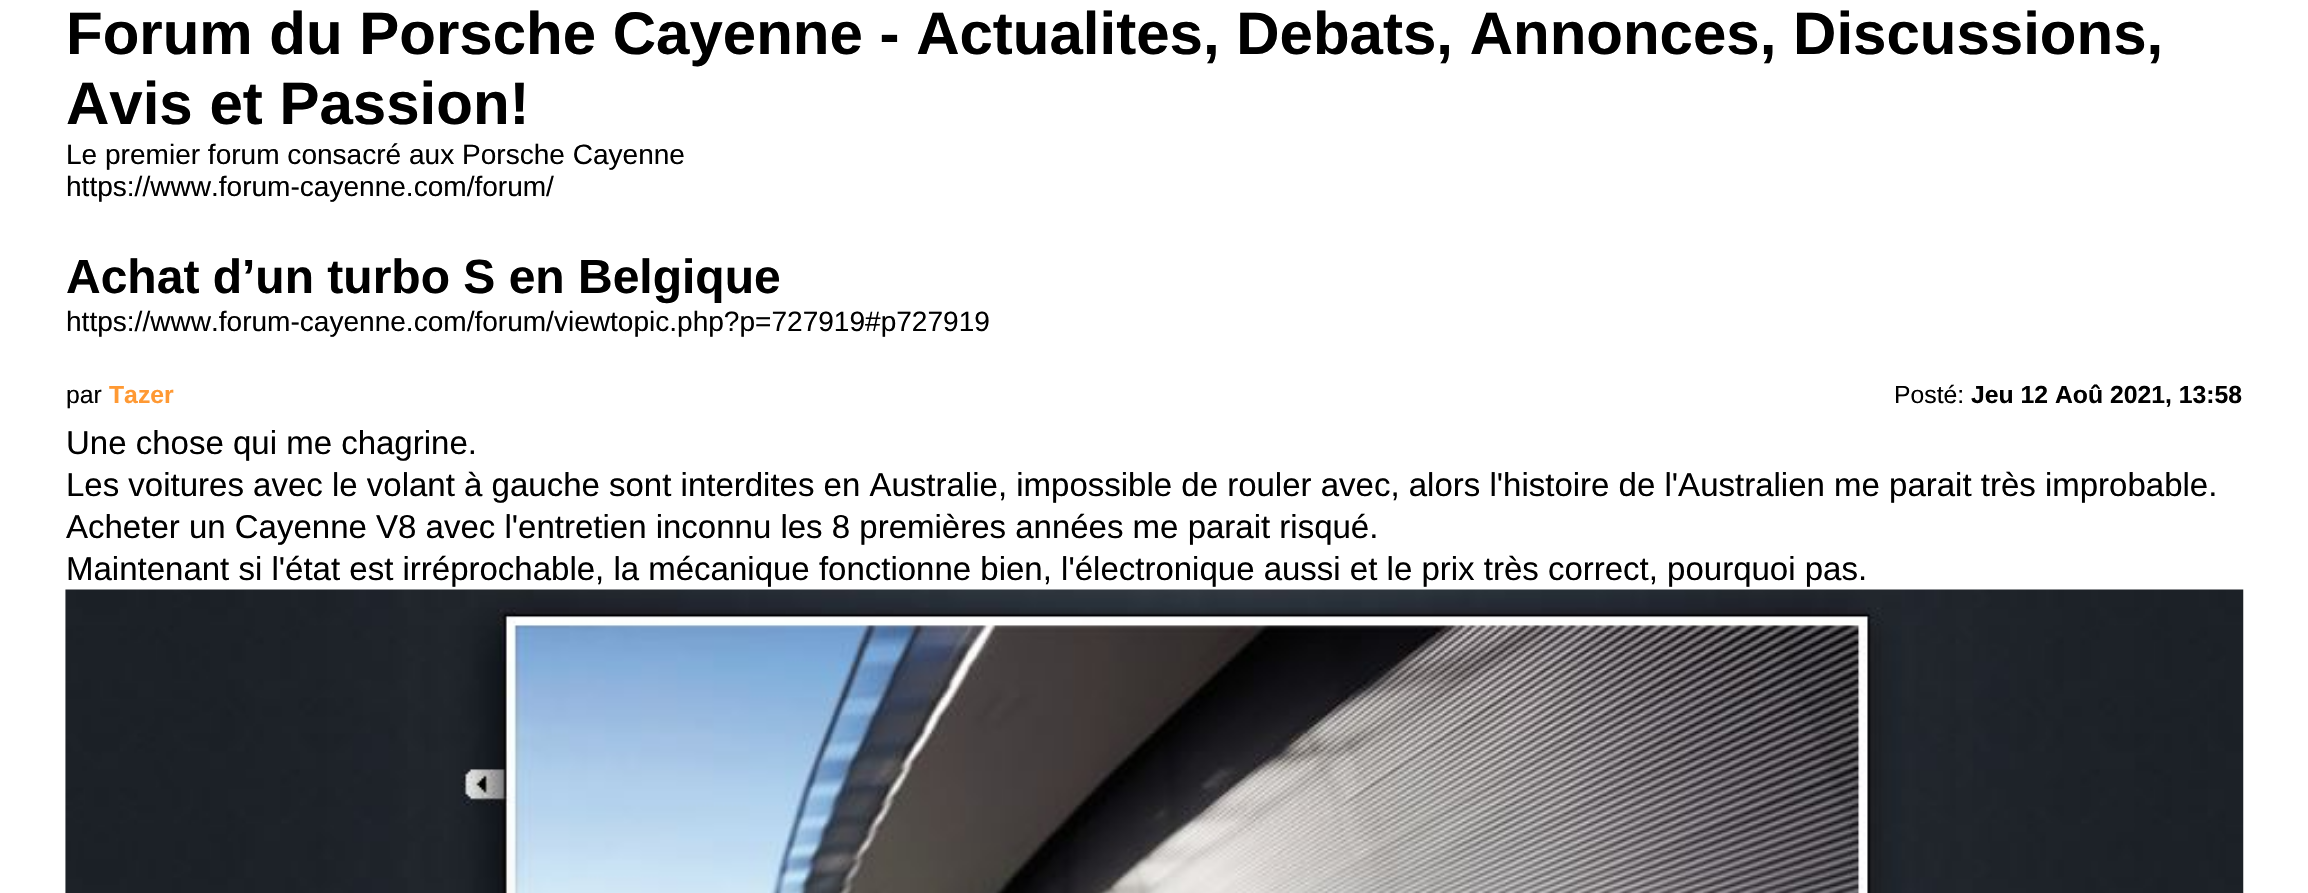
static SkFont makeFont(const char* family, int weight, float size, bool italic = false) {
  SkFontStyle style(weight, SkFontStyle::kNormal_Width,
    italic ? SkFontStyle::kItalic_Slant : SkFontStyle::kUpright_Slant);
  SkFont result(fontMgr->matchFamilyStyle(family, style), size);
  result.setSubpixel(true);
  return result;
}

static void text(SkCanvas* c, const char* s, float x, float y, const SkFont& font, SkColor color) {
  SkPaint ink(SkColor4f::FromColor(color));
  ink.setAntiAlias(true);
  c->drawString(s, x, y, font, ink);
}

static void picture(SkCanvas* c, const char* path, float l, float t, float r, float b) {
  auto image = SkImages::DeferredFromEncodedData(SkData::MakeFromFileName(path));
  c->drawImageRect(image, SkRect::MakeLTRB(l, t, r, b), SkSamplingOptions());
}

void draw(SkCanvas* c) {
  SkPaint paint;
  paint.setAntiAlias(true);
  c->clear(0xffffffff);
  SkFont face1 = makeFont("Liberation Sans", 700, 60);
  text(c, "Forum du Porsche Cayenne - Actualites, Debats, Annonces, Discussions,", 66, 54, face1, 0xff000000);
  text(c, "Avis et Passion!", 66, 124, face1, 0xff000000);
  SkFont face2 = makeFont("Liberation Sans", 400, 28.05f);
  text(c, "Le premier forum consacré aux Porsche Cayenne", 66, 164, face2, 0xff000000);
  text(c, "https://www.forum-cayenne.com/forum/", 66, 196, face2, 0xff000000);
  SkFont face3 = makeFont("Liberation Sans", 700, 48);
  text(c, "Achat d’un turbo S en Belgique", 66, 293, face3, 0xff000000);
  text(c, "https://www.forum-cayenne.com/forum/viewtopic.php?p=727919#p727919", 66, 331, face2, 0xff000000);
  SkFont face4 = makeFont("Liberation Sans", 400, 24.75f);
  text(c, "par", 66, 403, face4, 0xff000000);
  SkFont face5 = makeFont("Liberation Sans", 700, 24.75f);
  text(c, "Tazer", 109, 403, face5, 0xffff9933);
  text(c, "Posté:", 1894, 403, face4, 0xff000000);
  text(c, "Jeu 12 Aoû 2021, 13:58", 1971, 403, face5, 0xff000000);
  SkFont face6 = makeFont("Liberation Sans", 400, 33);
  text(c, "Une chose qui me chagrine.", 66, 454, face6, 0xff000000);
  text(c, "Les voitures avec le volant à gauche sont interdites en Australie, impossible de rouler avec, alors l'histoire de l'Australien me parait très improbable.", 66, 496, face6, 0xff000000);
  text(c, "Acheter un Cayenne V8 avec l'entretien inconnu les 8 premières années me parait risqué.", 66, 538, face6, 0xff000000);
  text(c, "Maintenant si l'état est irréprochable, la mécanique fonctionne bien, l'électronique aussi et le prix très correct, pourquoi pas.", 66, 580, face6, 0xff000000);
  picture(c, "img_01.png", 65, 589, 2244, 893);
}
